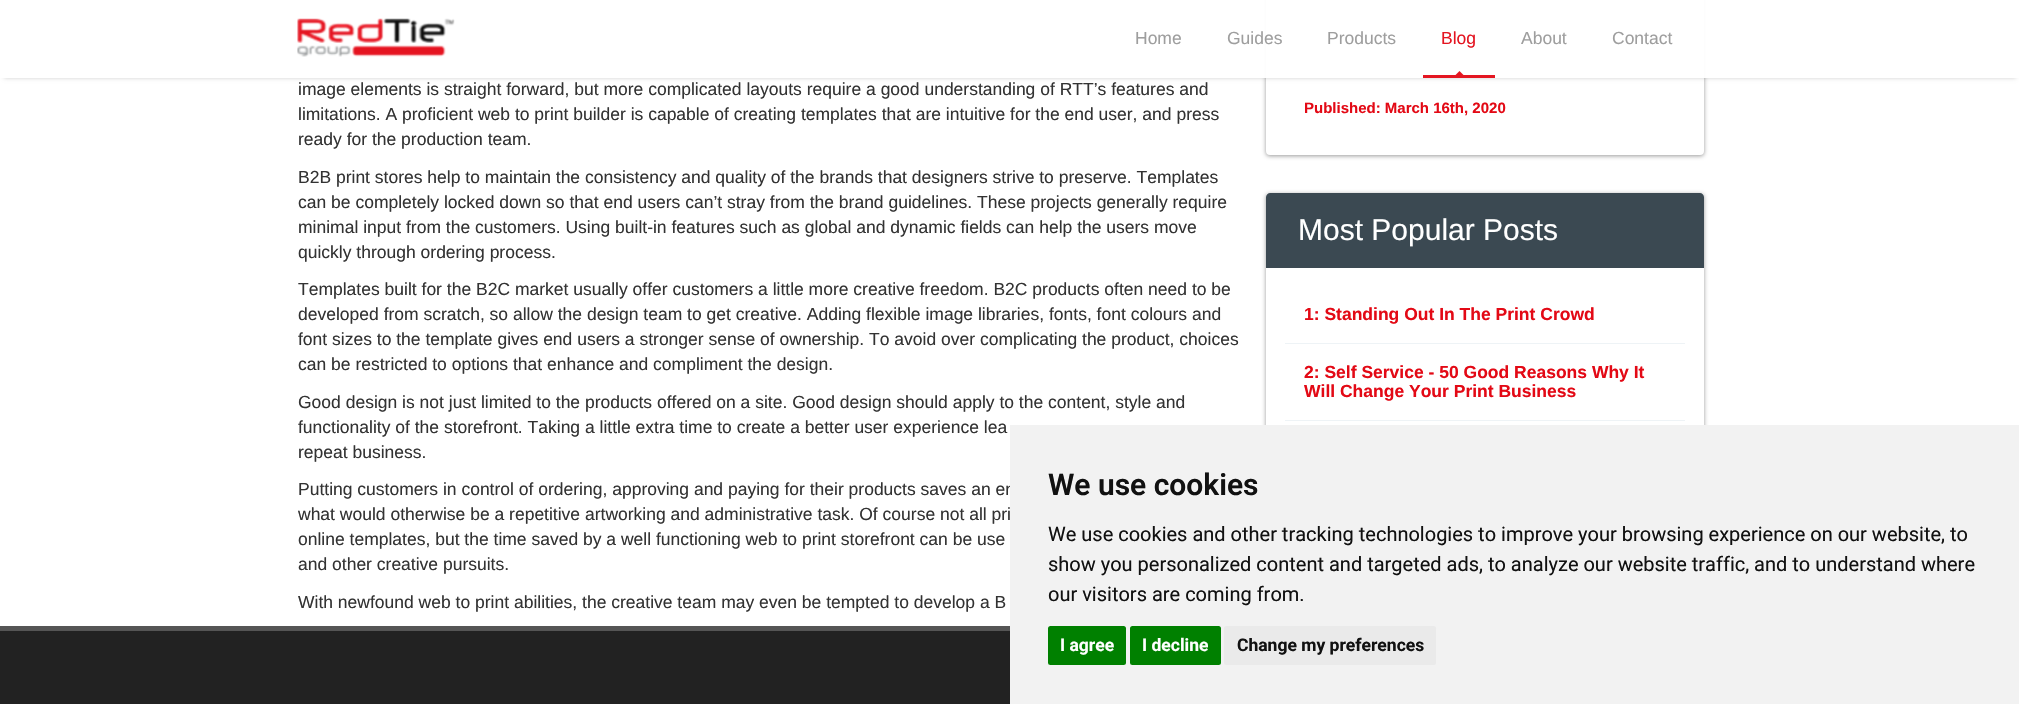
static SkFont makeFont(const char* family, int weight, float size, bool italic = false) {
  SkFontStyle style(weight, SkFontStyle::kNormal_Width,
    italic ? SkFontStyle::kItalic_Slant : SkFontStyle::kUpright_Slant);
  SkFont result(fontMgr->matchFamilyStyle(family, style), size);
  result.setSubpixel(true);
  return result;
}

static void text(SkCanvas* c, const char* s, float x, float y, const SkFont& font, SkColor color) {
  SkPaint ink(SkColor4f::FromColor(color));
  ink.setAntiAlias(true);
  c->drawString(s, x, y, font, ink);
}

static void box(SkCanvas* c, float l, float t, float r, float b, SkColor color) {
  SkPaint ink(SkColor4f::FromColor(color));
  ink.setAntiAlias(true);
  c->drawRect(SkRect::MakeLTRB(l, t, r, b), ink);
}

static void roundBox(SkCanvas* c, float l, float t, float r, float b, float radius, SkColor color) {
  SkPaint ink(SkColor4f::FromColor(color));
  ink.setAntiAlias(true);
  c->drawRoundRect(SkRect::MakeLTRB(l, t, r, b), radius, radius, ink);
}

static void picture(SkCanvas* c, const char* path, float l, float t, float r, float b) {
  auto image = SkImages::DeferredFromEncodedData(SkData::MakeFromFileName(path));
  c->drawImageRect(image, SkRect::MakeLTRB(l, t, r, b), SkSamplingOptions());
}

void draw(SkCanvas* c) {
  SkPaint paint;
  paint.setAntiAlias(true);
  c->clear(0xffffffff);
  paint.setColor(0x66000000);
  paint.setMaskFilter(SkMaskFilter::MakeBlur(kNormal_SkBlurStyle, 2));
  c->drawRoundRect(SkRect::MakeLTRB(1266, -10, 1704, 156), 4, 4, paint);
  paint.setMaskFilter(nullptr);
  roundBox(c, 1266, -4, 1704, 155, 4, 0xffffffff);
  box(c, 1285, 49, 1685, 50, 0xffeef3f6);
  c->save();
  c->clipPath(SkPathBuilder(SkPathFillType::kEvenOdd).moveTo(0, 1).lineTo(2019, 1).lineTo(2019, 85).lineTo(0, 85).close().moveTo(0, 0).lineTo(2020, 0).lineTo(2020, 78).lineTo(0, 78).close().detach(), true);
  paint.setColor(0x30000000);
  paint.setMaskFilter(SkMaskFilter::MakeBlur(kNormal_SkBlurStyle, 2));
  c->drawRect(SkRect::MakeLTRB(4, 8, 2016, 78), paint);
  paint.setMaskFilter(nullptr);
  c->restore();
  box(c, 2, 0, 2018, 78, 0xf2ffffff);
  picture(c, "img_01.png", 297, 18, 455, 57);
  SkFont face1 = makeFont("Liberation Sans", 400, 17.5f);
  text(c, "Home", 1135, 44, face1, 0xff9e9e9e);
  text(c, "Guides", 1227, 44, face1, 0xff9e9e9e);
  text(c, "Products", 1327, 44, face1, 0xff9e9e9e);
  box(c, 1423, 75, 1495, 78, 0xf2e30915);
  text(c, "Blog", 1441, 44, face1, 0xffe41521);
  c->save();
  c->clipRect(SkRect::MakeLTRB(1423, 0, 1495, 75));
  paint.setColor(0xf2e30915);
  c->drawPath(SkPathBuilder().moveTo(1459.5f, 71).lineTo(1464, 75.5f).lineTo(1459.5f, 80).lineTo(1455, 75.5f).close().detach(), paint);
  c->restore();
  text(c, "About", 1521, 44, face1, 0xff9e9e9e);
  text(c, "Contact", 1612, 44, face1, 0xff9e9e9e);
  text(c, "image elements is straight forward, but more complicated layouts require a good understanding of RTT’s features and", 298, 95, face1, 0xff333333);
  text(c, "limitations. A proficient web to print builder is capable of creating templates that are intuitive for the end user, and press", 298, 120, face1, 0xff333333);
  text(c, "ready for the production team.", 298, 145, face1, 0xff333333);
  text(c, "B2B print stores help to maintain the consistency and quality of the brands that designers strive to preserve. Templates", 298, 183, face1, 0xff333333);
  text(c, "can be completely locked down so that end users can’t stray from the brand guidelines. These projects generally require", 298, 208, face1, 0xff333333);
  text(c, "minimal input from the customers. Using built-in features such as global and dynamic fields can help the users move", 298, 233, face1, 0xff333333);
  text(c, "quickly through ordering process.", 298, 258, face1, 0xff333333);
  text(c, "Templates built for the B2C market usually offer customers a little more creative freedom. B2C products often need to be", 298, 295, face1, 0xff333333);
  text(c, "developed from scratch, so allow the design team to get creative. Adding flexible image libraries, fonts, font colours and", 298, 320, face1, 0xff333333);
  text(c, "font sizes to the template gives end users a stronger sense of ownership. To avoid over complicating the product, choices", 298, 345, face1, 0xff333333);
  text(c, "can be restricted to options that enhance and compliment the design.", 298, 370, face1, 0xff333333);
  text(c, "Good design is not just limited to the products offered on a site. Good design should apply to the content, style and", 298, 408, face1, 0xff333333);
  text(c, "functionality of the storefront. Taking a little extra time to create a better user experience lea", 298, 433, face1, 0xff333333);
  text(c, "repeat business.", 298, 458, face1, 0xff333333);
  text(c, "Putting customers in control of ordering, approving and paying for their products saves an en", 298, 495, face1, 0xff333333);
  text(c, "what would otherwise be a repetitive artworking and administrative task. Of course not all pri", 298, 520, face1, 0xff333333);
  text(c, "online templates, but the time saved by a well functioning web to print storefront can be use", 298, 545, face1, 0xff333333);
  text(c, "and other creative pursuits.", 298, 570, face1, 0xff333333);
  text(c, "With newfound web to print abilities, the creative team may even be tempted to develop a B", 298, 608, face1, 0xff333333);
  SkFont face2 = makeFont("Liberation Sans", 700, 15);
  text(c, "Published: March 16th, 2020", 1304, 113, face2, 0xffe30915);
  paint.setColor(0x66000000);
  paint.setMaskFilter(SkMaskFilter::MakeBlur(kNormal_SkBlurStyle, 2));
  c->drawRoundRect(SkRect::MakeLTRB(1266, 194, 1704, 518), 4, 4, paint);
  paint.setMaskFilter(nullptr);
  roundBox(c, 1266, 193, 1704, 516, 4, 0xffffffff);
  paint.setColor(0xff3b4952);
  c->drawPath(SkPathBuilder().moveTo(1270, 193).lineTo(1700, 193).cubicTo(1702, 193, 1704, 195, 1704, 197).lineTo(1704, 268).lineTo(1266, 268).lineTo(1266, 197).cubicTo(1266, 195, 1268, 193, 1270, 193).close().detach(), paint);
  SkFont face3 = makeFont("Liberation Sans", 400, 30);
  text(c, "Most Popular Posts", 1298, 240, face3, 0xffffffff);
  SkFont face4 = makeFont("Liberation Sans", 700, 17.5f);
  text(c, "1: Standing Out In The Print Crowd", 1304, 320, face4, 0xffe30915);
  box(c, 1285, 343, 1685, 344, 0xffeef3f6);
  text(c, "2: Self Service - 50 Good Reasons Why It", 1304, 378, face4, 0xffe30915);
  text(c, "Will Change Your Print Business", 1304, 397, face4, 0xffe30915);
  box(c, 1285, 420, 1685, 421, 0xffeef3f6);
  box(c, 1010, 425, 2019, 704, 0xfff2f2f2);
  SkFont face5 = makeFont("Roboto", 600, 30);
  text(c, "We use cookies", 1048, 495, face5, 0xff111111);
  SkFont face6 = makeFont("Roboto", 400, 20);
  text(c, "We use cookies and other tracking technologies to improve your browsing experience on our website, to", 1048, 541, face6, 0xff111111);
  text(c, "show you personalized content and targeted ads, to analyze our website traffic, and to understand where", 1048, 571, face6, 0xff111111);
  text(c, "our visitors are coming from.", 1048, 601, face6, 0xff111111);
  roundBox(c, 1048, 626, 1126, 665, 2.5f, 0xff008000);
  SkFont face7 = makeFont("Roboto", 700, 17.5f);
  text(c, "I agree", 1060, 651, face7, 0xffffffff);
  roundBox(c, 1130, 626, 1221, 665, 2.5f, 0xff008000);
  text(c, "I decline", 1142, 651, face7, 0xffffffff);
  roundBox(c, 1224, 626, 1436, 665, 2.5f, 0xffeaeaea);
  text(c, "Change my preferences", 1237, 651, face7, 0xff111111);
  box(c, 0, 631, 1010, 704, 0xff222222);
  box(c, 0, 626, 1010, 631, 0xff555555);
}
